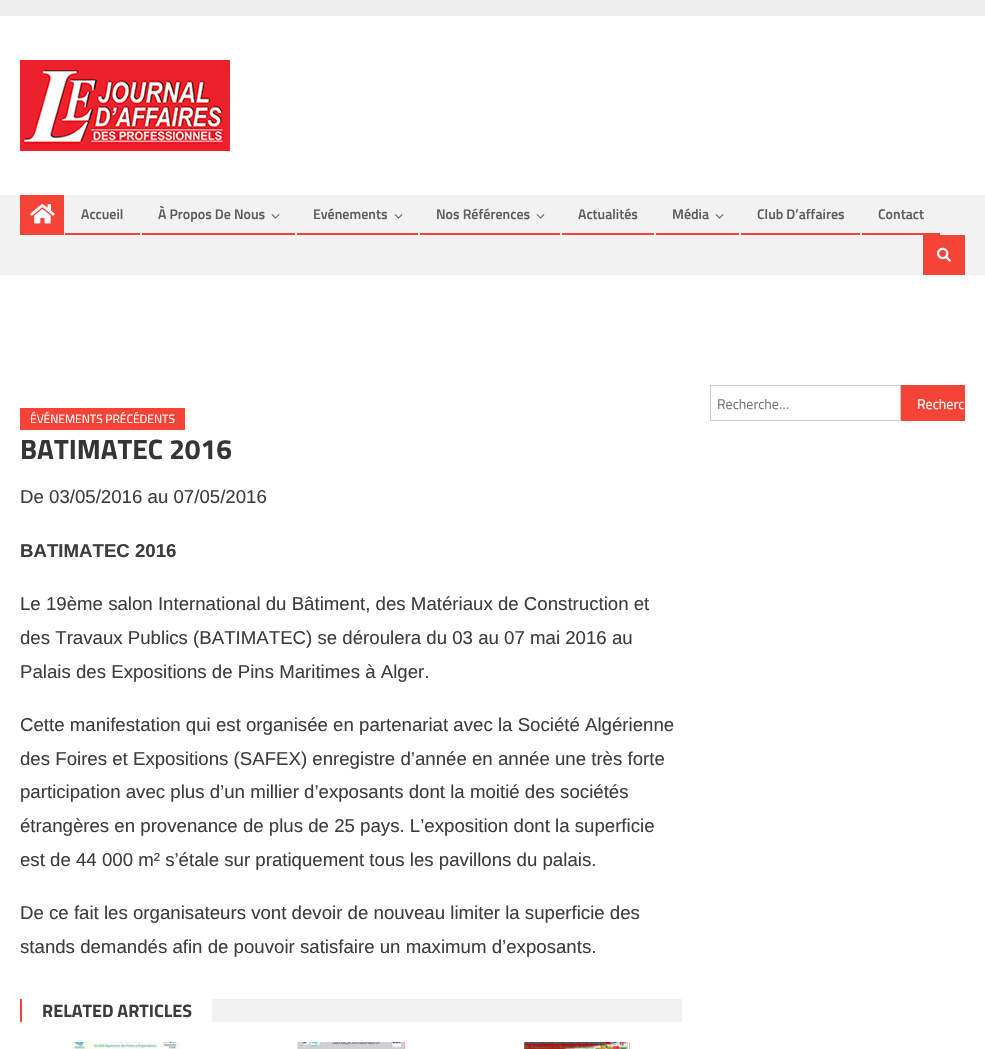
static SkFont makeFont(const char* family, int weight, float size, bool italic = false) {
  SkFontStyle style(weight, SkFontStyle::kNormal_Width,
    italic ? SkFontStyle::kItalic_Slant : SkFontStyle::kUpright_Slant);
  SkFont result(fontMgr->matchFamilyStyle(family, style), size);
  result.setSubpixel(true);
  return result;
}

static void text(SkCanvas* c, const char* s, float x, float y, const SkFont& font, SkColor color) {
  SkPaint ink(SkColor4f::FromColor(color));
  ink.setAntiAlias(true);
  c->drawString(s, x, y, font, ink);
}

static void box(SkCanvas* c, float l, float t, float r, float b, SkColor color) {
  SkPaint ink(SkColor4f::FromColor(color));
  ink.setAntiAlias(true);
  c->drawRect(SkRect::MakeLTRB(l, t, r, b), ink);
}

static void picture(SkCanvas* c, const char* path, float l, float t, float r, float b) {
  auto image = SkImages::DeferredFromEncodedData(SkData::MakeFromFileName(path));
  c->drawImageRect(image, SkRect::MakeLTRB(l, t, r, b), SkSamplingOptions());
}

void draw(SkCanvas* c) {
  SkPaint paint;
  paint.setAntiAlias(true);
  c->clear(0xffffffff);
  box(c, 0, 0, 985, 16, 0xffededed);
  picture(c, "img_01.png", 20, 60, 230, 151);
  box(c, 0, 195, 985, 275, 0xfff2f2f2);
  box(c, 20, 195, 64, 235, 0xfff54337);
  picture(c, "img_02.png", 30, 204, 55, 224);
  box(c, 65, 233, 140, 235, 0xfff54337);
  SkFont face1 = makeFont("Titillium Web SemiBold", 600, 14);
  text(c, "Accueil", 81, 219, face1, 0xff5d5c5c);
  box(c, 142, 233, 295, 235, 0xfff54337);
  text(c, "À Propos De Nous", 158, 219, face1, 0xff5d5c5c);
  picture(c, "img_03.png", 271, 214, 280, 219);
  box(c, 297, 233, 418, 235, 0xfff54337);
  text(c, "Evénements", 313, 219, face1, 0xff5d5c5c);
  picture(c, "img_03.png", 394, 214, 403, 219);
  box(c, 420, 233, 560, 235, 0xfff54337);
  text(c, "Nos Références", 436, 219, face1, 0xff5d5c5c);
  picture(c, "img_03.png", 536, 214, 545, 219);
  box(c, 562, 233, 654, 235, 0xfff54337);
  text(c, "Actualités", 578, 219, face1, 0xff5d5c5c);
  box(c, 656, 233, 739, 235, 0xfff54337);
  text(c, "Média", 672, 219, face1, 0xff5d5c5c);
  picture(c, "img_03.png", 715, 214, 724, 219);
  box(c, 741, 233, 860, 235, 0xfff54337);
  text(c, "Club D’affaires", 757, 219, face1, 0xff5d5c5c);
  box(c, 862, 233, 940, 235, 0xfff54337);
  text(c, "Contact", 878, 219, face1, 0xff5d5c5c);
  box(c, 923, 235, 965, 275, 0xfff54337);
  picture(c, "img_04.png", 937, 247, 951, 262);
  paint.setStyle(SkPaint::kStroke_Style);
  paint.setStrokeWidth(1);
  paint.setColor(0xffcccccc);
  c->drawRect(SkRect::MakeLTRB(710.5f, 385.5f, 900.5f, 420.5f), paint);
  SkFont face2 = makeFont("Titillium Web", 400, 14);
  text(c, "Recherche…", 717, 409, face2, 0xff757575);
  box(c, 901, 385, 965, 421, 0xfff54337);
  text(c, "Recherc", 917, 409, face2, 0xffffffff);
  box(c, 20, 408, 185, 430, 0xfff54337);
  SkFont face3 = makeFont("Titillium Web", 400, 12);
  text(c, "ÉVÉNEMENTS PRÉCÉDENTS", 30, 423, face3, 0xffffffff);
  SkFont face4 = makeFont("Titillium Web", 700, 28);
  text(c, "BATIMATEC 2016", 20, 459, face4, 0xff353535);
  SkFont face5 = makeFont("Liberation Sans", 400, 18.65f);
  text(c, "De 03/05/2016 au 07/05/2016", 20, 503, face5, 0xff3d3d3d);
  SkFont face6 = makeFont("Liberation Sans", 700, 18.65f);
  text(c, "BATIMATEC 2016", 20, 557, face6, 0xff3d3d3d);
  text(c, "Le 19ème salon International du Bâtiment, des Matériaux de Construction et", 20, 610, face5, 0xff3d3d3d);
  text(c, "des Travaux Publics (BATIMATEC) se déroulera du 03 au 07 mai 2016 au", 20, 644, face5, 0xff3d3d3d);
  text(c, "Palais des Expositions de Pins Maritimes à Alger.", 20, 678, face5, 0xff3d3d3d);
  text(c, "Cette manifestation qui est organisée en partenariat avec la Société Algérienne", 20, 731, face5, 0xff3d3d3d);
  text(c, "des Foires et Expositions (SAFEX) enregistre d’année en année une très forte", 20, 765, face5, 0xff3d3d3d);
  text(c, "participation avec plus d’un millier d’exposants dont la moitié des sociétés", 20, 798, face5, 0xff3d3d3d);
  text(c, "étrangères en provenance de plus de 25 pays. L’exposition dont la superficie", 20, 832, face5, 0xff3d3d3d);
  text(c, "est de 44 000 m² s’étale sur pratiquement tous les pavillons du palais.", 20, 866, face5, 0xff3d3d3d);
  text(c, "De ce fait les organisateurs vont devoir de nouveau limiter la superficie des", 20, 919, face5, 0xff3d3d3d);
  text(c, "stands demandés afin de pouvoir satisfaire un maximum d’exposants.", 20, 953, face5, 0xff3d3d3d);
  box(c, 212, 999, 682, 1022, 0xfff1f1f1);
  box(c, 20, 999, 22, 1022, 0xfff54337);
  SkFont face7 = makeFont("Titillium Web", 700, 18);
  text(c, "RELATED ARTICLES", 42, 1017, face7, 0xff3d3d3d);
  picture(c, "img_05.png", 71, 1042, 180, 1049);
  picture(c, "img_06.png", 297, 1042, 405, 1049);
  picture(c, "img_07.png", 523, 1042, 631, 1049);
}
